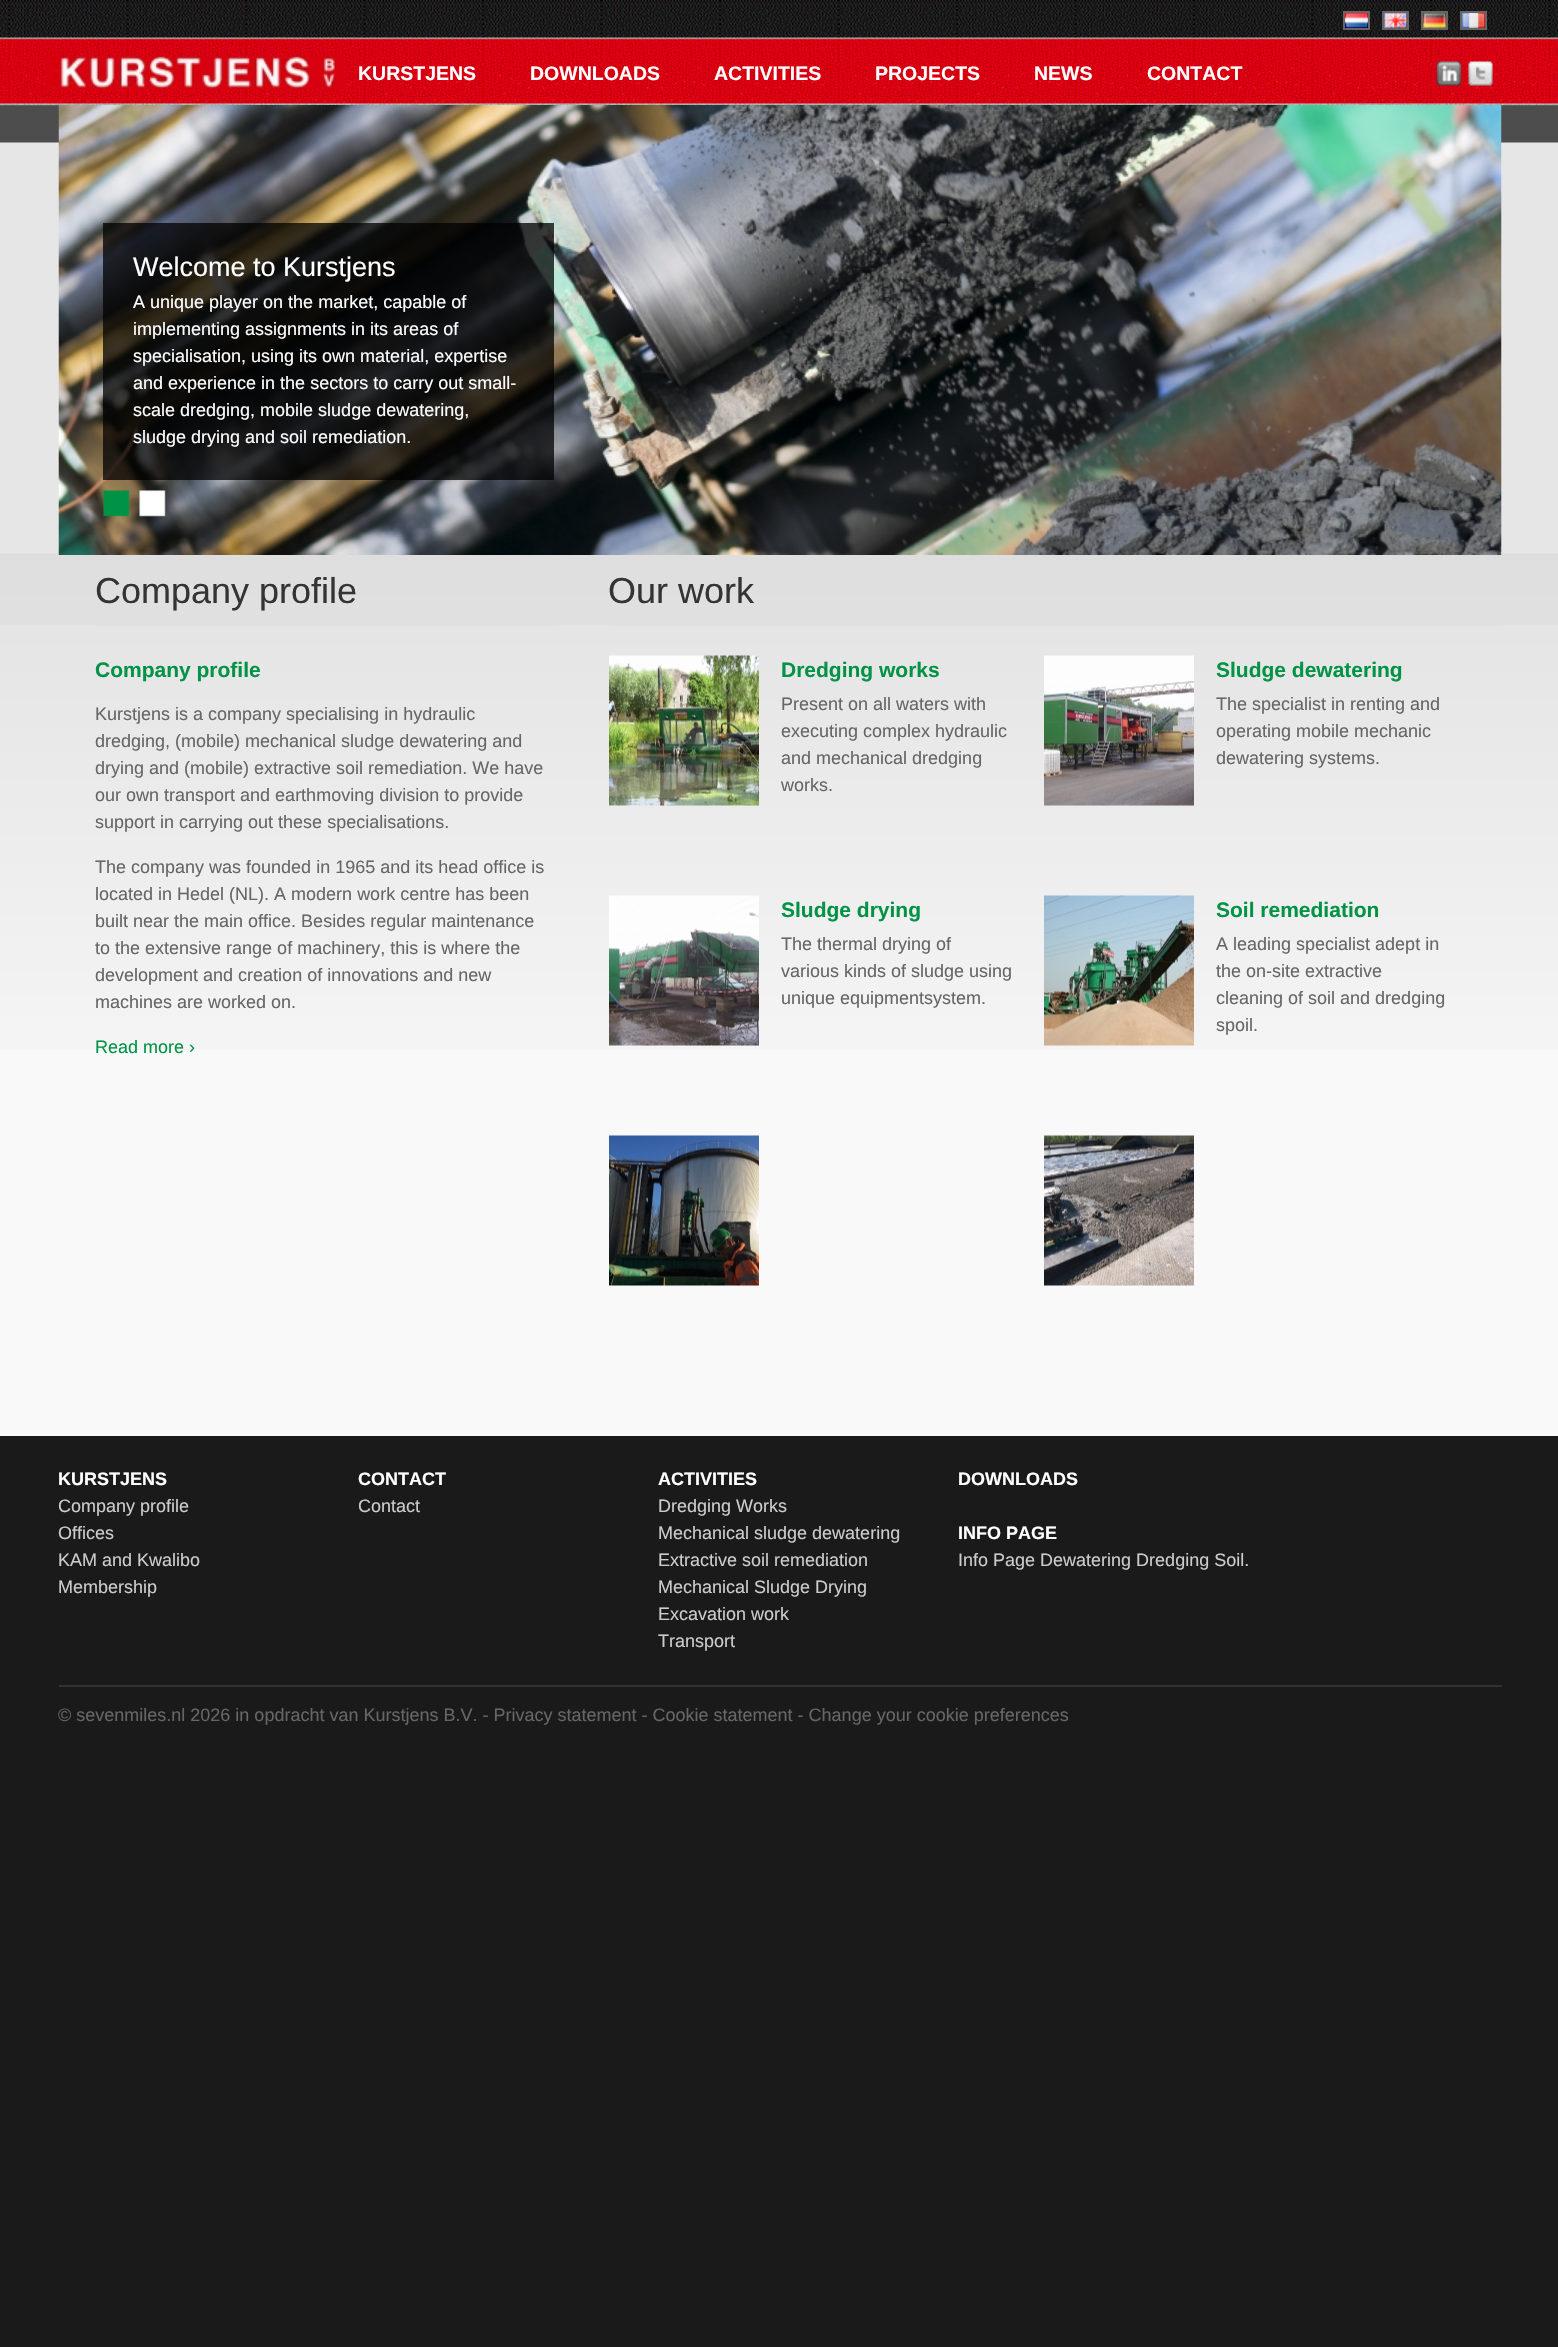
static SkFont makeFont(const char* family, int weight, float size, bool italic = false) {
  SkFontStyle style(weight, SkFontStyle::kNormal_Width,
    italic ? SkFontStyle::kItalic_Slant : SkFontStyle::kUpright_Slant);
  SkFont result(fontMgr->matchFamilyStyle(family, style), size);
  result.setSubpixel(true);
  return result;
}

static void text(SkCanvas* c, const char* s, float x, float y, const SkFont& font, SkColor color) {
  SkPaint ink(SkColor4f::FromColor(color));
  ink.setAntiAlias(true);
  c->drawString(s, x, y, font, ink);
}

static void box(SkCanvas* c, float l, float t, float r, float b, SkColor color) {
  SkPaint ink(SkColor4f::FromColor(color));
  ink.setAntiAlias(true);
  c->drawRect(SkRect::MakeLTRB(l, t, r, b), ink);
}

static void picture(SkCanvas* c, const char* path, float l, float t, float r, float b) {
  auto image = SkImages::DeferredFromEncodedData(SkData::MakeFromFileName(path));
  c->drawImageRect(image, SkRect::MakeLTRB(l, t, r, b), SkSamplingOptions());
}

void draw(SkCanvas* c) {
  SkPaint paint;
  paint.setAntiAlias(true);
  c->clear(0xff1a1a1a);
  box(c, 0, 1050, 1558, 1436, 0xfff9f9f9);
  picture(c, "img_01.png", 0, 105, 1558, 1050);
  picture(c, "img_02.png", 0, 0, 1558, 105);
  picture(c, "img_03.png", 1345, 13, 1368, 28);
  paint.setStyle(SkPaint::kStroke_Style);
  paint.setStrokeWidth(2);
  paint.setColor(0xff666666);
  c->drawRect(SkRect::MakeLTRB(1344, 12, 1369, 29), paint);
  picture(c, "img_04.png", 1384, 13, 1407, 28);
  c->drawRect(SkRect::MakeLTRB(1383, 12, 1408, 29), paint);
  picture(c, "img_05.png", 1423, 13, 1446, 28);
  c->drawRect(SkRect::MakeLTRB(1422, 12, 1447, 29), paint);
  picture(c, "img_06.png", 1462, 13, 1485, 28);
  c->drawRect(SkRect::MakeLTRB(1461, 12, 1486, 29), paint);
  picture(c, "img_07.png", 45, 55, 347, 90);
  SkFont face1 = makeFont("Liberation Sans", 700, 19.5f);
  text(c, "KURSTJENS", 358, 80, face1, 0xffffffff);
  text(c, "DOWNLOADS", 530, 80, face1, 0xffffffff);
  text(c, "ACTIVITIES", 714, 80, face1, 0xffffffff);
  text(c, "PROJECTS", 875, 80, face1, 0xffffffff);
  text(c, "NEWS", 1034, 80, face1, 0xffffffff);
  text(c, "CONTACT", 1147, 80, face1, 0xffffffff);
  picture(c, "img_08.png", 1437, 61, 1461, 86);
  picture(c, "img_09.png", 1468, 61, 1493, 86);
  picture(c, "img_10.png", 58, 105, 1502, 555);
  box(c, 103, 223, 554, 480, 0xbf000000);
  SkFont face2 = makeFont("Liberation Sans", 400, 27);
  text(c, "Welcome to Kurstjens", 133, 276, face2, 0xffffffff);
  SkFont face3 = makeFont("Liberation Sans", 400, 18);
  text(c, "A unique player on the market, capable of", 133, 308, face3, 0xffffffff);
  text(c, "implementing assignments in its areas of", 133, 335, face3, 0xffffffff);
  text(c, "specialisation, using its own material, expertise", 133, 362, face3, 0xffffffff);
  text(c, "and experience in the sectors to carry out small-", 133, 389, face3, 0xffffffff);
  text(c, "scale dredging, mobile sludge dewatering,", 133, 416, face3, 0xffffffff);
  text(c, "sludge drying and soil remediation.", 133, 443, face3, 0xffffffff);
  picture(c, "img_11.png", 103, 490, 130, 517);
  picture(c, "img_12.png", 139, 490, 166, 517);
  box(c, 96, 625, 554, 626, 0xffdfdfdf);
  SkFont face4 = makeFont("Liberation Sans", 400, 36);
  text(c, "Company profile", 95, 603, face4, 0xff343434);
  SkFont face5 = makeFont("Liberation Sans", 700, 21);
  text(c, "Company profile", 95, 677, face5, 0xff009345);
  text(c, "Kurstjens is a company specialising in hydraulic", 95, 720, face3, 0xff666666);
  text(c, "dredging, (mobile) mechanical sludge dewatering and", 95, 747, face3, 0xff666666);
  text(c, "drying and (mobile) extractive soil remediation. We have", 95, 774, face3, 0xff666666);
  text(c, "our own transport and earthmoving division to provide", 95, 801, face3, 0xff666666);
  text(c, "support in carrying out these specialisations.", 95, 828, face3, 0xff666666);
  text(c, "The company was founded in 1965 and its head office is", 95, 873, face3, 0xff666666);
  text(c, "located in Hedel (NL). A modern work centre has been", 95, 900, face3, 0xff666666);
  text(c, "built near the main office. Besides regular maintenance", 95, 927, face3, 0xff666666);
  text(c, "to the extensive range of machinery, this is where the", 95, 954, face3, 0xff666666);
  text(c, "development and creation of innovations and new", 95, 981, face3, 0xff666666);
  text(c, "machines are worked on.", 95, 1008, face3, 0xff666666);
  text(c, "Read more ›", 95, 1053, face3, 0xff009345);
  box(c, 609, 625, 1502, 626, 0xffdfdfdf);
  text(c, "Our work", 608, 603, face4, 0xff343434);
  picture(c, "img_13.png", 609, 655, 759, 806);
  text(c, "Dredging works", 781, 677, face5, 0xff009345);
  text(c, "Present on all waters with", 781, 710, face3, 0xff666666);
  text(c, "executing complex hydraulic", 781, 737, face3, 0xff666666);
  text(c, "and mechanical dredging", 781, 764, face3, 0xff666666);
  text(c, "works.", 781, 791, face3, 0xff666666);
  picture(c, "img_14.png", 1044, 655, 1194, 806);
  text(c, "Sludge dewatering", 1216, 677, face5, 0xff009345);
  text(c, "The specialist in renting and", 1216, 710, face3, 0xff666666);
  text(c, "operating mobile mechanic", 1216, 737, face3, 0xff666666);
  text(c, "dewatering systems.", 1216, 764, face3, 0xff666666);
  picture(c, "img_15.png", 609, 895, 759, 1046);
  text(c, "Sludge drying", 781, 917, face5, 0xff009345);
  text(c, "The thermal drying of", 781, 950, face3, 0xff666666);
  text(c, "various kinds of sludge using", 781, 977, face3, 0xff666666);
  text(c, "unique equipmentsystem.", 781, 1004, face3, 0xff666666);
  picture(c, "img_16.png", 1044, 895, 1194, 1046);
  text(c, "Soil remediation", 1216, 917, face5, 0xff009345);
  text(c, "A leading specialist adept in", 1216, 950, face3, 0xff666666);
  text(c, "the on-site extractive", 1216, 977, face3, 0xff666666);
  text(c, "cleaning of soil and dredging", 1216, 1004, face3, 0xff666666);
  text(c, "spoil.", 1216, 1031, face3, 0xff666666);
  picture(c, "img_17.png", 609, 1135, 759, 1286);
  picture(c, "img_18.png", 1044, 1135, 1194, 1286);
  SkFont face6 = makeFont("Liberation Sans", 700, 18);
  text(c, "KURSTJENS", 58, 1485, face6, 0xffffffff);
  text(c, "Company profile", 58, 1512, face3, 0xffcccccc);
  text(c, "Offices", 58, 1539, face3, 0xffcccccc);
  text(c, "KAM and Kwalibo", 58, 1566, face3, 0xffcccccc);
  text(c, "Membership", 58, 1593, face3, 0xffcccccc);
  text(c, "CONTACT", 358, 1485, face6, 0xffffffff);
  text(c, "Contact", 358, 1512, face3, 0xffcccccc);
  text(c, "ACTIVITIES", 658, 1485, face6, 0xffffffff);
  text(c, "Dredging Works", 658, 1512, face3, 0xffcccccc);
  text(c, "Mechanical sludge dewatering", 658, 1539, face3, 0xffcccccc);
  text(c, "Extractive soil remediation", 658, 1566, face3, 0xffcccccc);
  text(c, "Mechanical Sludge Drying", 658, 1593, face3, 0xffcccccc);
  text(c, "Excavation work", 658, 1620, face3, 0xffcccccc);
  text(c, "Transport", 658, 1647, face3, 0xffcccccc);
  text(c, "DOWNLOADS", 958, 1485, face6, 0xffffffff);
  text(c, "INFO PAGE", 958, 1539, face6, 0xffffffff);
  text(c, "Info Page Dewatering Dredging Soil.", 958, 1566, face3, 0xffcccccc);
  box(c, 59, 1685, 1502, 1687, 0xff333333);
  text(c, "© sevenmiles.nl 2026 in opdracht van Kurstjens B.V. - Privacy statement - Cookie statement - Change your cookie preferences", 58, 1721, face3, 0xff666666);
}
